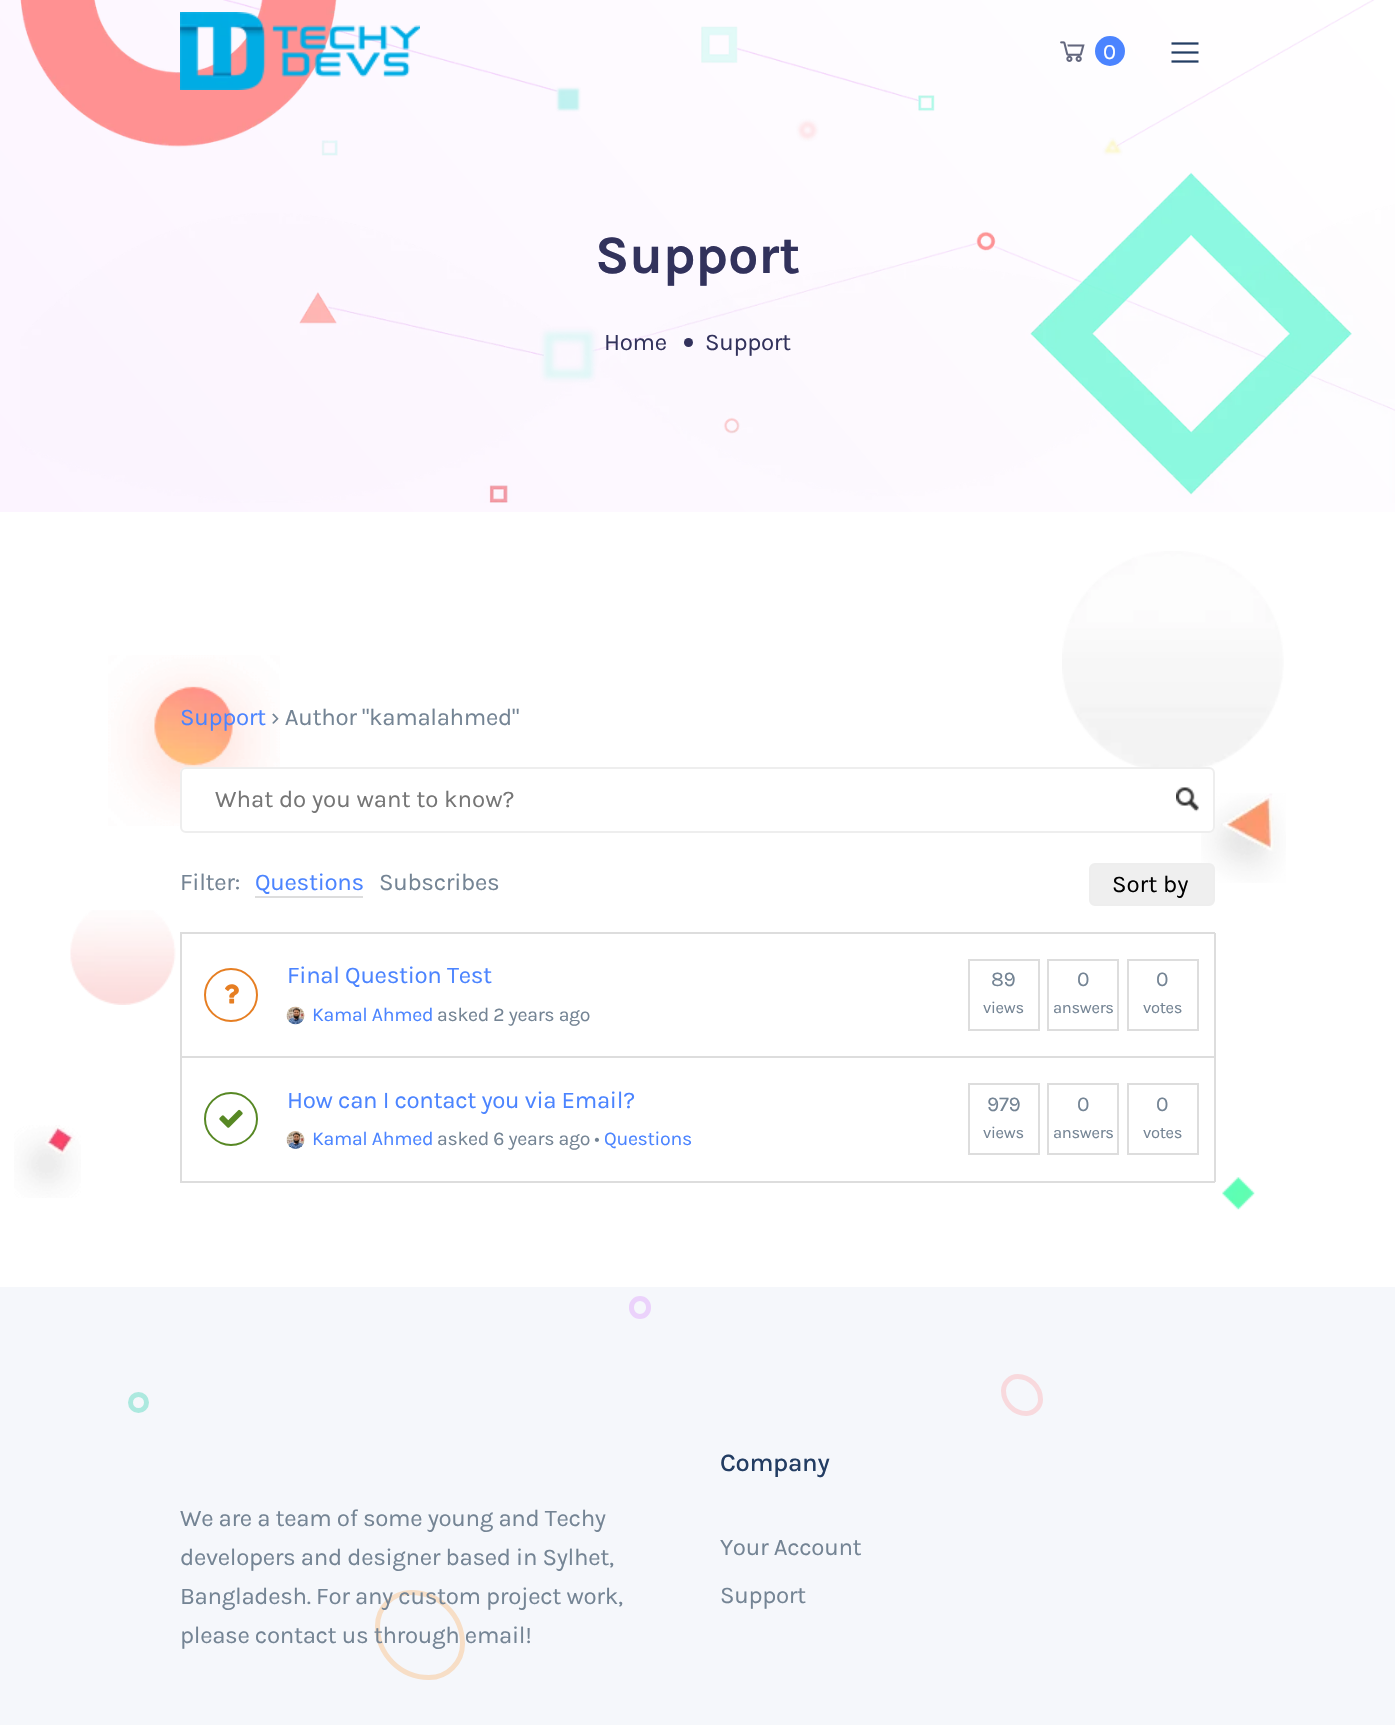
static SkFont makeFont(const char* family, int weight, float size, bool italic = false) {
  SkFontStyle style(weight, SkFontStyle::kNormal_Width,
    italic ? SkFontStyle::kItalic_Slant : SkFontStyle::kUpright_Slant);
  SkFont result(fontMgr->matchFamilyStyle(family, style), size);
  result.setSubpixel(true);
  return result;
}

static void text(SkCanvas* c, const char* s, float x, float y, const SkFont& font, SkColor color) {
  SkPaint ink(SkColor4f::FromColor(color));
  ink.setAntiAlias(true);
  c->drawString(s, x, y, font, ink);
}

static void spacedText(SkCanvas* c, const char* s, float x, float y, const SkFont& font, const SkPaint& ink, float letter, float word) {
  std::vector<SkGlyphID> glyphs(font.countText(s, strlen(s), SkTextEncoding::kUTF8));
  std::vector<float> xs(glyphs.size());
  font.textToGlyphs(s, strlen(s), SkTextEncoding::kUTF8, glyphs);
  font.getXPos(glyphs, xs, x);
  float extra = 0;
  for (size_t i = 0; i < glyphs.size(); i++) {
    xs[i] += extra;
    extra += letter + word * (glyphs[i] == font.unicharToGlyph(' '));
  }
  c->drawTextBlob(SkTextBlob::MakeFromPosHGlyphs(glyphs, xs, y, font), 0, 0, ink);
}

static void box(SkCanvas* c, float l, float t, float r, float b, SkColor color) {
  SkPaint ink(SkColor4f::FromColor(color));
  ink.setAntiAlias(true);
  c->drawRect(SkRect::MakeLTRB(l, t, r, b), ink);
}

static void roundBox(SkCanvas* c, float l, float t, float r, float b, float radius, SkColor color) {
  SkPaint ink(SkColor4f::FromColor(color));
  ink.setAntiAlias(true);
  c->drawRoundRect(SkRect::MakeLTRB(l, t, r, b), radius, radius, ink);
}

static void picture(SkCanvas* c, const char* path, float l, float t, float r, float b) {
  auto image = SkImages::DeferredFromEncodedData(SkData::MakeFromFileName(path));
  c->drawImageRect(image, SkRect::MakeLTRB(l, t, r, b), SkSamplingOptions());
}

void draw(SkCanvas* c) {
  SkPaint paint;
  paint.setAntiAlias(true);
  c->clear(0xffffffff);
  {
    const SkColor colors[] = {0xfffcf4ff, 0xffffffff};
    const float stops[] = {0, 1};
    const SkPoint ends[] = {{162, 705}, {1233, -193}};
    paint.setShader(SkGradientShader::MakeLinear(ends, colors, stops, 2, SkTileMode::kClamp));
    paint.setAlpha(255);
  }
  c->drawRect(SkRect::MakeLTRB(0, 0, 1395, 512), paint);
  picture(c, "img_04.png", 20, 0, 1395, 503);
  picture(c, "img_01.png", 180, 12, 420, 90);
  picture(c, "img_02.png", 1060, 41, 1085, 62);
  paint.setShader(nullptr);
  paint.setColor(0xff4b84ff);
  c->drawCircle(1110, 51, 15, paint);
  SkFont face1 = makeFont("Karla", 400, 22);
  paint.setColor(0xffffffff);
  spacedText(c, "0", 1103, 59, face1, paint, -0.3f, 0);
  picture(c, "img_03.png", 1171, 42, 1199, 63);
  SkFont face2 = makeFont("Karla", 700, 54);
  paint.setColor(0xff32325c);
  spacedText(c, "Support", 595, 273, face2, paint, -0.3f, 0);
  SkFont face3 = makeFont("Karla", 400, 24);
  spacedText(c, "Home", 604, 350, face3, paint, -0.3f, 0);
  c->drawCircle(688.5f, 342.5f, 4.5f, paint);
  spacedText(c, "Support", 705, 350, face3, paint, -0.3f, 0);
  picture(c, "img_05.png", 108, 655, 280, 826);
  picture(c, "img_06.png", 1062, 551, 1284, 767);
  paint.setColor(0xff4b84ff);
  spacedText(c, "Support", 180, 725, face3, paint, -0.3f, 0);
  paint.setColor(0xff748494);
  spacedText(c, "› Author \"kamalahmed\"", 271, 725, face3, paint, -0.3f, 0);
  picture(c, "img_12.png", 1201, 793, 1286, 883);
  roundBox(c, 180, 767, 1215, 833, 6, 0xffffffff);
  picture(c, "img_07.png", 1176, 787, 1199, 812);
  paint.setStyle(SkPaint::kStroke_Style);
  paint.setStrokeWidth(2);
  paint.setColor(0xffeeeeee);
  c->drawRoundRect(SkRect::MakeLTRB(181, 768, 1214, 832), 5, 5, paint);
  text(c, "What do you want to know?", 215, 807, face3, 0xff757575);
  paint.setStyle(SkPaint::kFill_Style);
  paint.setColor(0xff748494);
  spacedText(c, "Filter:", 180, 890, face3, paint, -0.3f, 0);
  paint.setColor(0xff4b84ff);
  spacedText(c, "Questions", 255, 890, face3, paint, -0.3f, 0);
  box(c, 255, 896, 363, 898, 0xffdddddd);
  paint.setColor(0xff748494);
  spacedText(c, "Subscribes", 379, 890, face3, paint, -0.3f, 0);
  paint.setColor(0xffefefef);
  c->drawRoundRect(SkRect::MakeLTRB(1090, 864, 1214, 905), 5, 5, paint);
  paint.setStyle(SkPaint::kStroke_Style);
  paint.setColor(0xffeeeeee);
  c->drawRoundRect(SkRect::MakeLTRB(1090, 864, 1214, 905), 5, 5, paint);
  text(c, "Sort by", 1112, 892, face3, 0xff000000);
  box(c, 180, 932, 1215, 934, 0xffdddddd);
  box(c, 1214, 933, 1216, 1182, 0xffdddddd);
  box(c, 180, 1056, 1215, 1058, 0xffdddddd);
  box(c, 180, 933, 182, 1058, 0xffdddddd);
  paint.setStyle(SkPaint::kFill_Style);
  paint.setColor(0xff4b84ff);
  spacedText(c, "Final Question Test", 287, 983, face3, paint, -0.3f, 0);
  paint.setStyle(SkPaint::kStroke_Style);
  paint.setColor(0xffdddddd);
  c->drawRect(SkRect::MakeLTRB(969, 960, 1039, 1030), paint);
  SkFont face4 = makeFont("Karla", 400, 21);
  paint.setStyle(SkPaint::kFill_Style);
  paint.setColor(0xff748494);
  spacedText(c, "89", 991, 986, face4, paint, -0.3f, 0);
  SkFont face5 = makeFont("Karla", 400, 16.5f);
  spacedText(c, "views", 983, 1013, face5, paint, -0.3f, 0);
  paint.setStyle(SkPaint::kStroke_Style);
  paint.setColor(0xffdddddd);
  c->drawRect(SkRect::MakeLTRB(1048, 960, 1118, 1030), paint);
  paint.setStyle(SkPaint::kFill_Style);
  paint.setColor(0xff748494);
  spacedText(c, "0", 1077, 986, face4, paint, -0.3f, 0);
  spacedText(c, "answers", 1053, 1013, face5, paint, -0.3f, 0);
  paint.setStyle(SkPaint::kStroke_Style);
  paint.setColor(0xffdddddd);
  c->drawRect(SkRect::MakeLTRB(1128, 960, 1198, 1030), paint);
  paint.setStyle(SkPaint::kFill_Style);
  paint.setColor(0xff748494);
  spacedText(c, "0", 1156, 986, face4, paint, -0.3f, 0);
  spacedText(c, "votes", 1143, 1013, face5, paint, -0.3f, 0);
  paint.setStyle(SkPaint::kStroke_Style);
  paint.setColor(0xffe67e22);
  c->drawCircle(231, 995, 26, paint);
  picture(c, "img_08.png", 225, 984, 239, 1004);
  picture(c, "img_09.png", 286, 1006, 305, 1025);
  SkFont face6 = makeFont("Karla", 400, 19.5f);
  paint.setStyle(SkPaint::kFill_Style);
  paint.setColor(0xff4b84ff);
  spacedText(c, "Kamal Ahmed", 312, 1021, face6, paint, -0.3f, 0);
  paint.setColor(0xff748494);
  spacedText(c, "asked 2 years ago", 437, 1021, face6, paint, -0.3f, 0);
  box(c, 180, 1181, 1215, 1183, 0xffdddddd);
  box(c, 180, 1058, 182, 1182, 0xffdddddd);
  paint.setColor(0xff4b84ff);
  spacedText(c, "How can I contact you via Email?", 287, 1108, face3, paint, -0.3f, 0);
  paint.setStyle(SkPaint::kStroke_Style);
  paint.setColor(0xffdddddd);
  c->drawRect(SkRect::MakeLTRB(969, 1084, 1039, 1154), paint);
  paint.setStyle(SkPaint::kFill_Style);
  paint.setColor(0xff748494);
  spacedText(c, "979", 987, 1111, face4, paint, -0.3f, 0);
  spacedText(c, "views", 983, 1138, face5, paint, -0.3f, 0);
  paint.setStyle(SkPaint::kStroke_Style);
  paint.setColor(0xffdddddd);
  c->drawRect(SkRect::MakeLTRB(1048, 1084, 1118, 1154), paint);
  paint.setStyle(SkPaint::kFill_Style);
  paint.setColor(0xff748494);
  spacedText(c, "0", 1077, 1111, face4, paint, -0.3f, 0);
  spacedText(c, "answers", 1053, 1138, face5, paint, -0.3f, 0);
  paint.setStyle(SkPaint::kStroke_Style);
  paint.setColor(0xffdddddd);
  c->drawRect(SkRect::MakeLTRB(1128, 1084, 1198, 1154), paint);
  paint.setStyle(SkPaint::kFill_Style);
  paint.setColor(0xff748494);
  spacedText(c, "0", 1156, 1111, face4, paint, -0.3f, 0);
  spacedText(c, "votes", 1143, 1138, face5, paint, -0.3f, 0);
  paint.setStyle(SkPaint::kStroke_Style);
  paint.setColor(0xff578824);
  c->drawCircle(231, 1119, 26, paint);
  picture(c, "img_10.png", 219, 1109, 243, 1128);
  picture(c, "img_11.png", 286, 1131, 305, 1149);
  paint.setStyle(SkPaint::kFill_Style);
  paint.setColor(0xff4b84ff);
  spacedText(c, "Kamal Ahmed", 312, 1145, face6, paint, -0.3f, 0);
  paint.setColor(0xff748494);
  spacedText(c, "asked 6 years ago •", 437, 1145, face6, paint, -0.3f, 0);
  paint.setColor(0xff4b84ff);
  spacedText(c, "Questions", 604, 1145, face6, paint, -0.3f, 0);
  picture(c, "img_13.png", 70, 910, 176, 1005);
  picture(c, "img_14.png", 14, 1125, 81, 1198);
  picture(c, "img_15.png", 1222, 1177, 1255, 1210);
  box(c, 0, 1287, 1395, 1725, 0xfff5f7fb);
  paint.setStyle(SkPaint::kStroke_Style);
  paint.setStrokeWidth(5);
  paint.setColor(0xffebd2fb);
  c->drawRoundRect(SkRect::MakeLTRB(631.5f, 1298.5f, 648.5f, 1316.5f), 8.5f, 8.5f, paint);
  paint.setColor(0xfface9df);
  c->drawCircle(138.5f, 1402.5f, 8, paint);
  paint.setColor(0xfff8d9dd);
  c->drawPath(SkPathBuilder().moveTo(1017.5f, 1376.5f).cubicTo(1030, 1376.5f, 1040.5f, 1387, 1040.5f, 1399.5f).cubicTo(1040.5f, 1407, 1034, 1413.5f, 1026.5f, 1413.5f).cubicTo(1014, 1413.5f, 1003.5f, 1403, 1003.5f, 1390.5f).cubicTo(1003.5f, 1383, 1010, 1376.5f, 1017.5f, 1376.5f).close().detach(), paint);
  paint.setStyle(SkPaint::kFill_Style);
  paint.setColor(0xff748494);
  spacedText(c, "We are a team of some young and Techy", 180, 1526, face3, paint, -0.3f, 0);
  spacedText(c, "developers and designer based in Sylhet,", 180, 1565, face3, paint, -0.3f, 0);
  paint.setStyle(SkPaint::kStroke_Style);
  paint.setColor(0xfff7dec6);
  c->drawPath(SkPathBuilder().moveTo(411, 1592.5f).cubicTo(439.5f, 1592.5f, 462.5f, 1615.5f, 462.5f, 1644).cubicTo(462.5f, 1662.5f, 447.5f, 1677.5f, 429, 1677.5f).cubicTo(400.5f, 1677.5f, 377.5f, 1654.5f, 377.5f, 1626).cubicTo(377.5f, 1607.5f, 392.5f, 1592.5f, 411, 1592.5f).close().detach(), paint);
  paint.setStyle(SkPaint::kFill_Style);
  paint.setColor(0xff748494);
  spacedText(c, "Bangladesh. For any custom project work,", 180, 1604, face3, paint, -0.3f, 0);
  spacedText(c, "please contact us through email!", 180, 1643, face3, paint, -0.3f, 0);
  SkFont face7 = makeFont("Karla", 500, 25.5f);
  paint.setColor(0xff233d63);
  spacedText(c, "Company", 720, 1471, face7, paint, -0.3f, 0);
  paint.setColor(0xff748494);
  spacedText(c, "Your Account", 720, 1555, face3, paint, -0.3f, 0);
  spacedText(c, "Support", 720, 1603, face3, paint, -0.3f, 0);
}
